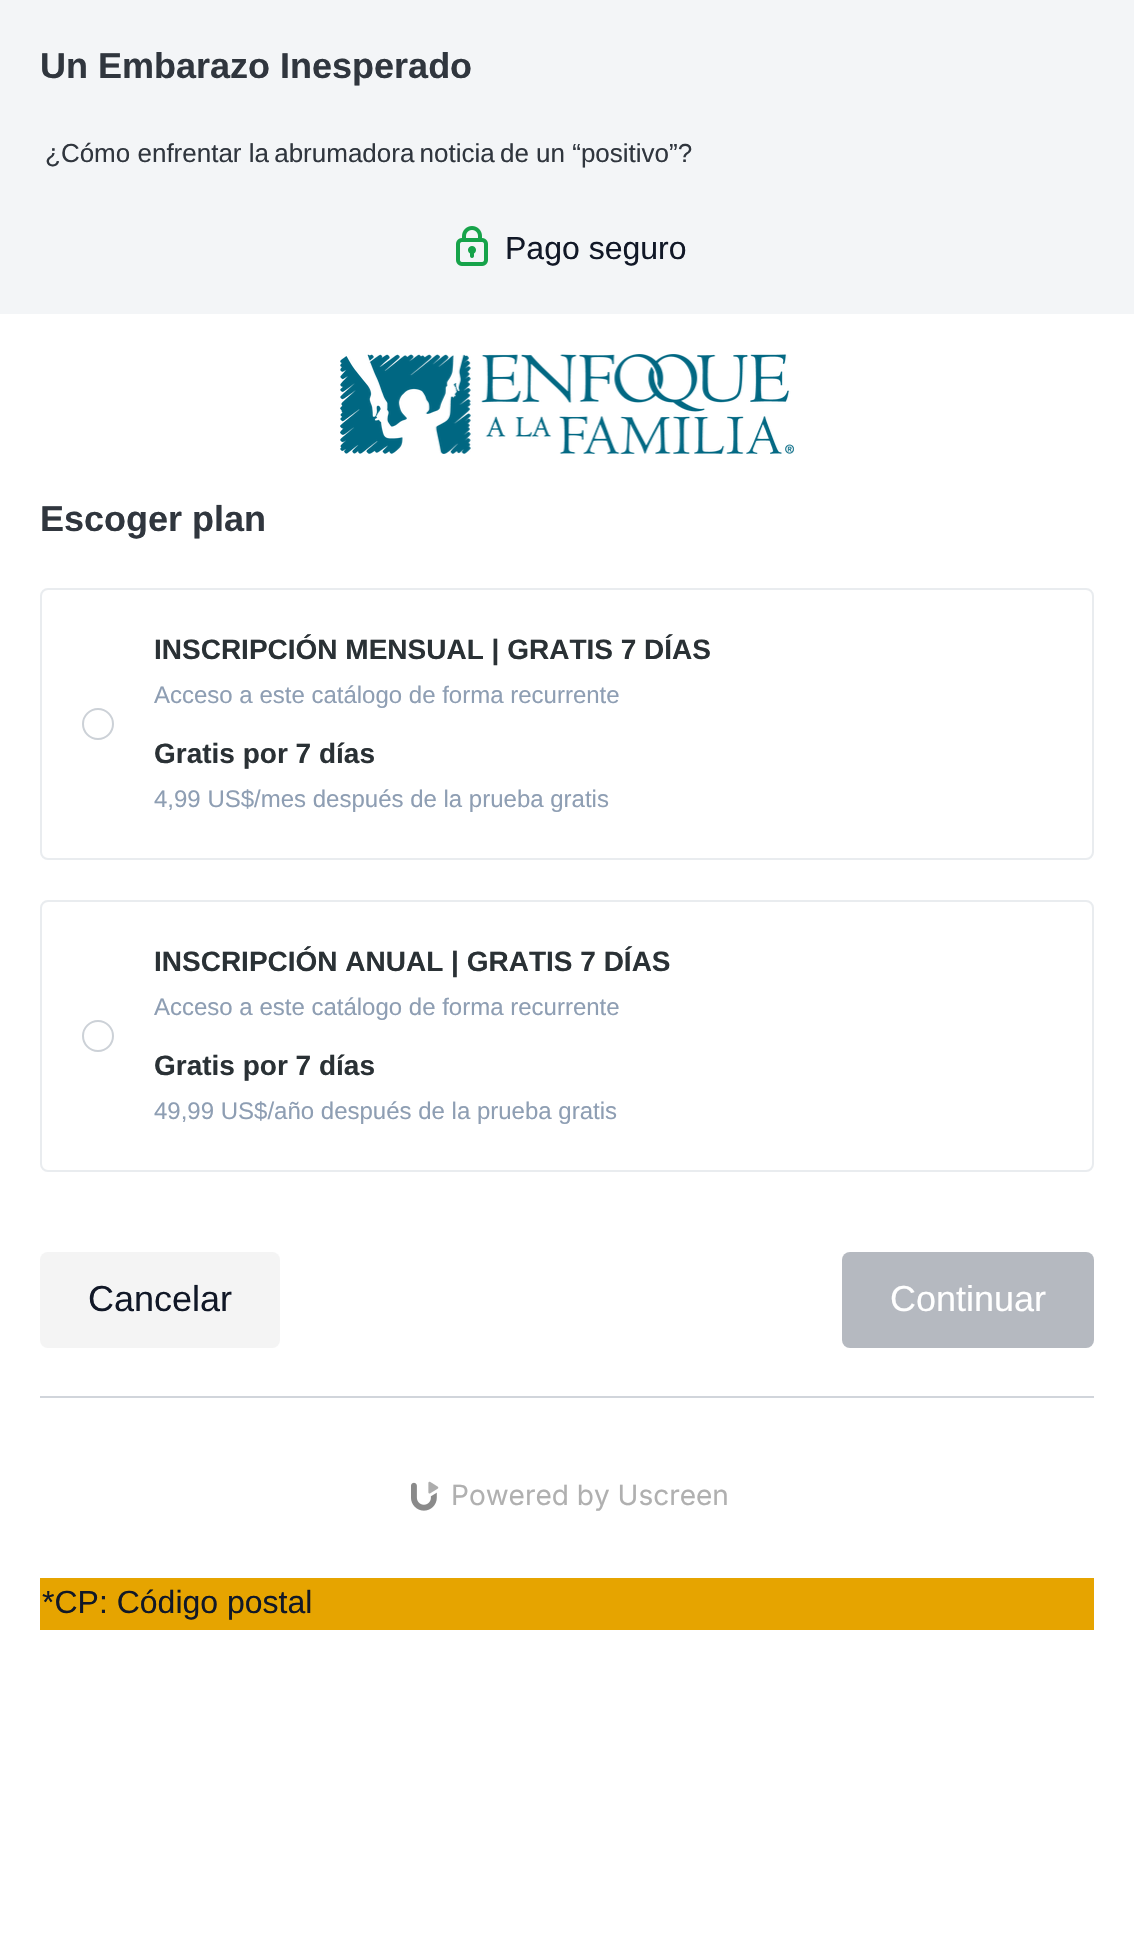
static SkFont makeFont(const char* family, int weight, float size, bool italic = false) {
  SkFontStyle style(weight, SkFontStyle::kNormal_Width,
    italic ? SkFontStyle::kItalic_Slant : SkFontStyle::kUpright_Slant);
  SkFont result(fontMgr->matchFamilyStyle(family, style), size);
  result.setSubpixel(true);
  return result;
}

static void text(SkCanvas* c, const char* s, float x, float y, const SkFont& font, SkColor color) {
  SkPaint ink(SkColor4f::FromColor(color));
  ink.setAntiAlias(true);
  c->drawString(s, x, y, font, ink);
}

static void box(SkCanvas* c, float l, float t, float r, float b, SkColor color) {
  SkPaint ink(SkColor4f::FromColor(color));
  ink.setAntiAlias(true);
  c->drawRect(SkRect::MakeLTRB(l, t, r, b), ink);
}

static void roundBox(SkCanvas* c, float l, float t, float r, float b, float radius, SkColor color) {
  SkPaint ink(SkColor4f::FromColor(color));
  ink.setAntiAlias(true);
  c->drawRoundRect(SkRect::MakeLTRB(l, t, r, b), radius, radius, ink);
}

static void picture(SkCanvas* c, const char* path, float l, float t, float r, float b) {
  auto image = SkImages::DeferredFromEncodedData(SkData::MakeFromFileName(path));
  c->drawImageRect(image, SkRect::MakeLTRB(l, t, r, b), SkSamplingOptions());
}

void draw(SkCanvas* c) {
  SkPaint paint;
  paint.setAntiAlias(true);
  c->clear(0xffffffff);
  box(c, 0, 0, 1134, 314, 0xfff3f5f7);
  SkFont face1 = makeFont("Liberation Sans", 700, 36);
  text(c, "Un Embarazo Inesperado", 40, 78, face1, 0xff30363e);
  SkFont face2 = makeFont("Liberation Sans", 400, 26);
  text(c, "¿Cómo enfrentar la abrumadora noticia de un “positivo”?", 45, 162, face2, 0xff30363e);
  picture(c, "img_01.png", 456, 226, 488, 266);
  SkFont face3 = makeFont("Liberation Sans", 400, 32);
  text(c, "Pago seguro", 505, 259, face3, 0xff111827);
  picture(c, "img_02.png", 340, 354, 794, 454);
  text(c, "Escoger plan", 40, 531, face1, 0xff30363e);
  paint.setStyle(SkPaint::kStroke_Style);
  paint.setStrokeWidth(2);
  paint.setColor(0xffe9ecef);
  c->drawRoundRect(SkRect::MakeLTRB(41, 589, 1093, 859), 7, 7, paint);
  paint.setColor(0xffccd1d7);
  c->drawCircle(98, 724, 15, paint);
  SkFont face4 = makeFont("Liberation Sans", 700, 28);
  text(c, "INSCRIPCIÓN MENSUAL | GRATIS 7 DÍAS", 154, 659, face4, 0xff2a3135);
  SkFont face5 = makeFont("Liberation Sans", 400, 24);
  text(c, "Acceso a este catálogo de forma recurrente", 154, 703, face5, 0xff8e9eb3);
  text(c, "Gratis por 7 días", 154, 763, face4, 0xff2a3135);
  text(c, "4,99 US$/mes después de la prueba gratis", 154, 807, face5, 0xff8e9eb3);
  paint.setColor(0xffe9ecef);
  c->drawRoundRect(SkRect::MakeLTRB(41, 901, 1093, 1171), 7, 7, paint);
  paint.setColor(0xffccd1d7);
  c->drawCircle(98, 1036, 15, paint);
  text(c, "INSCRIPCIÓN ANUAL | GRATIS 7 DÍAS", 154, 971, face4, 0xff2a3135);
  text(c, "Acceso a este catálogo de forma recurrente", 154, 1015, face5, 0xff8e9eb3);
  text(c, "Gratis por 7 días", 154, 1075, face4, 0xff2a3135);
  text(c, "49,99 US$/año después de la prueba gratis", 154, 1119, face5, 0xff8e9eb3);
  roundBox(c, 40, 1252, 280, 1348, 8, 0xfff4f4f4);
  SkFont face6 = makeFont("Liberation Sans", 400, 36);
  text(c, "Cancelar", 88, 1311, face6, 0xff111827);
  roundBox(c, 842, 1252, 1094, 1348, 8, 0xffb5b9c0);
  text(c, "Continuar", 890, 1311, face6, 0xffffffff);
  box(c, 40, 1396, 1094, 1398, 0xffd1d5db);
  picture(c, "img_03.png", 411, 1481, 439, 1511);
  SkFont face7 = makeFont("Inter", 400, 28);
  text(c, "Powered by Uscreen", 451, 1505, face7, 0xffb0b0b0);
  box(c, 40, 1578, 1094, 1630, 0xffe6a400);
  text(c, "*CP: Código postal", 42, 1613, face3, 0xff111827);
}
